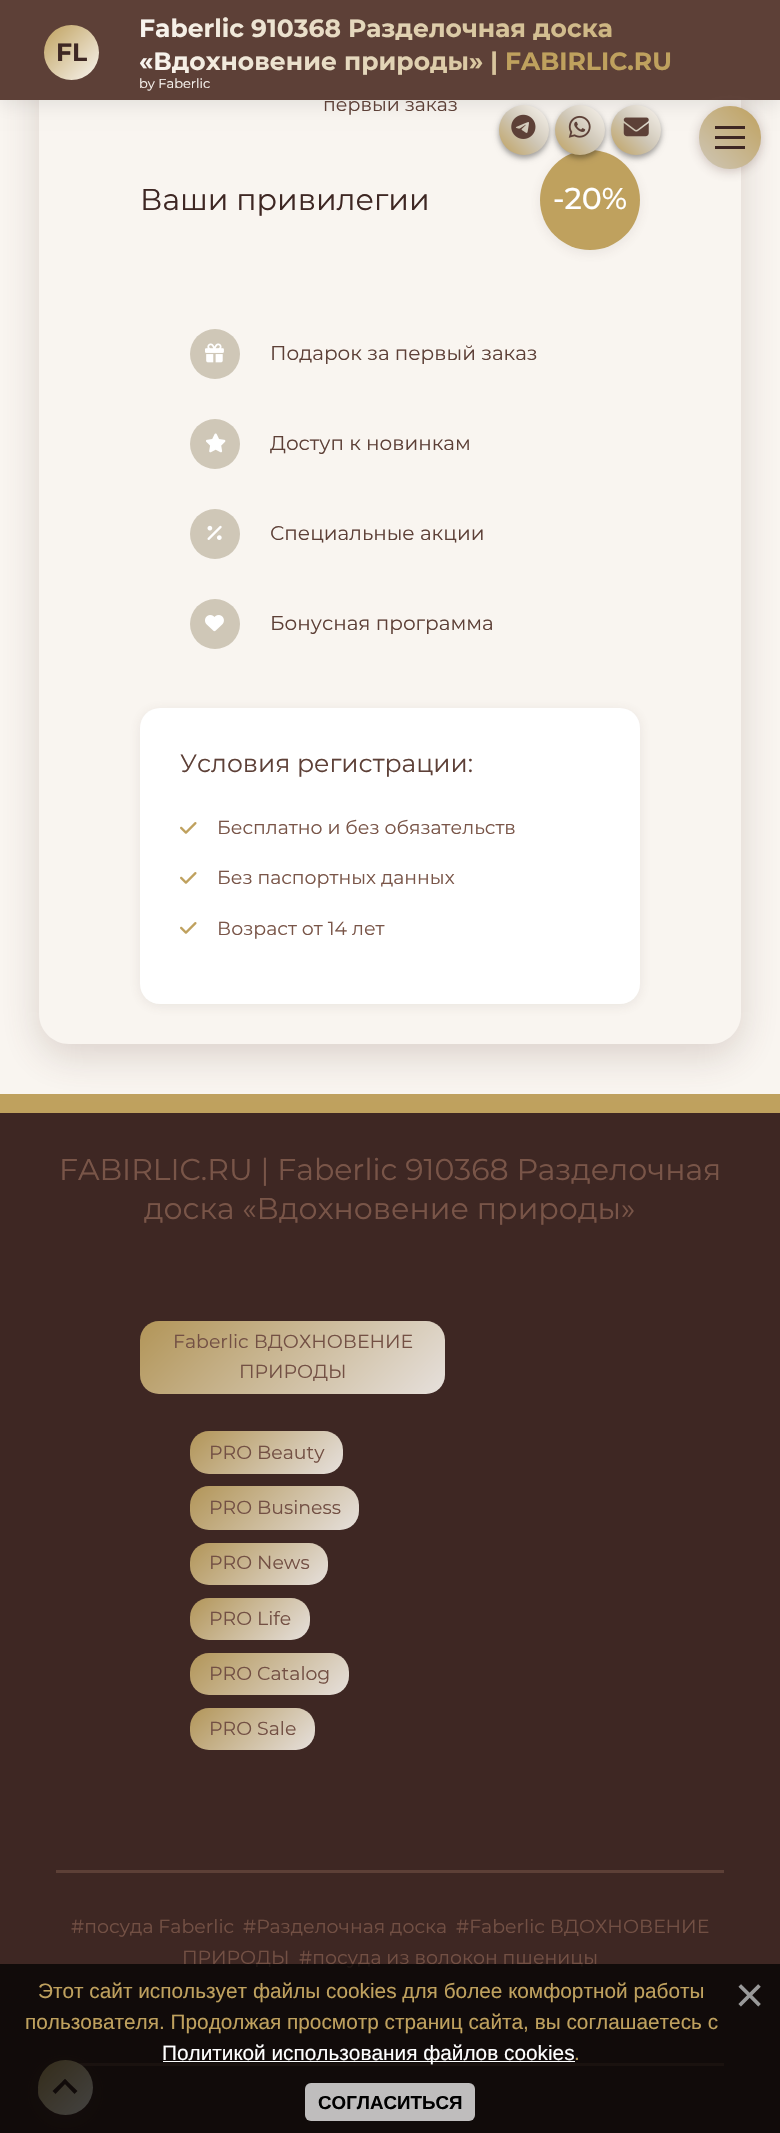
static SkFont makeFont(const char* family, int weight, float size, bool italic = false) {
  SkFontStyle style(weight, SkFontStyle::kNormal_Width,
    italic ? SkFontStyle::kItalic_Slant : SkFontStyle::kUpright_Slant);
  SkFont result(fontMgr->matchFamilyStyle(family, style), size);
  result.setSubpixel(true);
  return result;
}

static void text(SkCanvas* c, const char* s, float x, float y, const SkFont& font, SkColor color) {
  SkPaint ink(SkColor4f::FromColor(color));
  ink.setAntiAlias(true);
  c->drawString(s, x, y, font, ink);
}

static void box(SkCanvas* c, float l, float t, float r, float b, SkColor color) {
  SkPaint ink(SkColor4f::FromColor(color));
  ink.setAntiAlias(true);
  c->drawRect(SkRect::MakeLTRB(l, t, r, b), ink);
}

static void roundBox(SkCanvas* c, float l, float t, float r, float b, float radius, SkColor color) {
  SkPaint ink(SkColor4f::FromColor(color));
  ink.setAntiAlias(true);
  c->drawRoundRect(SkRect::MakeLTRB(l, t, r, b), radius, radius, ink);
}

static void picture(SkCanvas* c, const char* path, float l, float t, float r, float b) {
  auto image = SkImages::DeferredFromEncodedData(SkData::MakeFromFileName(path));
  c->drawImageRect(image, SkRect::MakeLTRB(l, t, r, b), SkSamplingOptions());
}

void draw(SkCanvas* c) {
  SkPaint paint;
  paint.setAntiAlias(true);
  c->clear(0xfff9f5f0);
  box(c, 0, 1113, 780, 2133, 0xff3e2723);
  box(c, 0, 1094, 780, 1113, 0xffbfa15e);
  paint.setColor(0x335d4037);
  paint.setMaskFilter(SkMaskFilter::MakeBlur(kNormal_SkBlurStyle, 19));
  c->drawRoundRect(SkRect::MakeLTRB(39, -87, 741, 1056), 30, 30, paint);
  paint.setMaskFilter(nullptr);
  paint.setColor(0xfff9f5f0);
  c->drawPath(SkPathBuilder().moveTo(39, 19).lineTo(741, 19).lineTo(741, 1014).cubicTo(741, 1030.5f, 727.5f, 1044, 711, 1044).lineTo(69, 1044).cubicTo(52.5f, 1044, 39, 1030.5f, 39, 1014).close().detach(), paint);
  paint.setColor(0x1a000000);
  paint.setMaskFilter(SkMaskFilter::MakeBlur(kNormal_SkBlurStyle, 9.5f));
  c->drawRect(SkRect::MakeLTRB(0, 3, 780, 103), paint);
  paint.setMaskFilter(nullptr);
  box(c, 0, 0, 780, 100, 0xff5d4037);
  {
    const SkColor colors[] = {0xffbfa15e, 0xfff9f5f0};
    const float stops[] = {0, 1};
    const SkPoint ends[] = {{44, 25}, {99, 80}};
    paint.setShader(SkGradientShader::MakeLinear(ends, colors, stops, 2, SkTileMode::kClamp));
    paint.setAlpha(255);
  }
  c->drawCircle(71.5f, 52.5f, 27.5f, paint);
  SkFont face1 = makeFont("Montserrat", 700, 25);
  text(c, "FL", 56, 61, face1, 0xff3e2723);
  {
    const SkColor colors[] = {0xfff9f5f0, 0xffbfa15e};
    const float stops[] = {0, 1};
    const SkPoint ends[] = {{139, 45}, {761, 45}};
    paint.setShader(SkGradientShader::MakeLinear(ends, colors, stops, 2, SkTileMode::kClamp));
    paint.setAlpha(255);
  }
  c->drawString("Faberlic 910368 Разделочная доска", 139, 37, face1, paint);
  c->drawString("«Вдохновение природы» |", 139, 70, face1, paint);
  text(c, "FABIRLIC.RU", 505, 70, face1, 0xffbfa15e);
  SkFont face2 = makeFont("Montserrat", 400, 13);
  text(c, "by Faberlic", 139, 88, face2, 0xfff9f5f0);
  paint.setShader(nullptr);
  paint.setColor(0x1a5d4037);
  paint.setMaskFilter(SkMaskFilter::MakeBlur(kNormal_SkBlurStyle, 6));
  c->drawRoundRect(SkRect::MakeLTRB(540, 153, 640, 253), 50, 50, paint);
  paint.setMaskFilter(nullptr);
  paint.setColor(0xffbfa15e);
  c->drawCircle(590, 200, 50, paint);
  paint.setColor(0x33000000);
  paint.setMaskFilter(SkMaskFilter::MakeBlur(kNormal_SkBlurStyle, 2.5f));
  c->drawRoundRect(SkRect::MakeLTRB(499, 108, 549, 158), 25, 25, paint);
  paint.setMaskFilter(nullptr);
  paint.setMaskFilter(SkMaskFilter::MakeBlur(kNormal_SkBlurStyle, 3));
  c->drawRoundRect(SkRect::MakeLTRB(499, 108, 549, 158), 25, 25, paint);
  paint.setMaskFilter(nullptr);
  {
    const SkColor colors[] = {0xffbfa15e, 0xffcfc7b7, 0xfff9f5f0};
    const float stops[] = {0, 0.5f, 1};
    const SkPoint ends[] = {{499, 155}, {549, 105}};
    paint.setShader(SkGradientShader::MakeLinear(ends, colors, stops, 3, SkTileMode::kClamp));
    paint.setAlpha(255);
  }
  c->drawCircle(524, 130, 25, paint);
  picture(c, "img_01.png", 511, 114, 536, 139);
  paint.setShader(nullptr);
  paint.setColor(0x33000000);
  paint.setMaskFilter(SkMaskFilter::MakeBlur(kNormal_SkBlurStyle, 2.5f));
  c->drawRoundRect(SkRect::MakeLTRB(555, 108, 605, 158), 25, 25, paint);
  paint.setMaskFilter(nullptr);
  paint.setMaskFilter(SkMaskFilter::MakeBlur(kNormal_SkBlurStyle, 3));
  c->drawRoundRect(SkRect::MakeLTRB(555, 108, 605, 158), 25, 25, paint);
  paint.setMaskFilter(nullptr);
  {
    const SkColor colors[] = {0xffbfa15e, 0xffcfc7b7, 0xfff9f5f0};
    const float stops[] = {0, 0.5f, 1};
    const SkPoint ends[] = {{555, 155}, {605, 105}};
    paint.setShader(SkGradientShader::MakeLinear(ends, colors, stops, 3, SkTileMode::kClamp));
    paint.setAlpha(255);
  }
  c->drawCircle(580, 130, 25, paint);
  picture(c, "img_02.png", 568, 115, 591, 138);
  paint.setShader(nullptr);
  paint.setColor(0x33000000);
  paint.setMaskFilter(SkMaskFilter::MakeBlur(kNormal_SkBlurStyle, 2.5f));
  c->drawRoundRect(SkRect::MakeLTRB(611, 108, 661, 158), 25, 25, paint);
  paint.setMaskFilter(nullptr);
  paint.setMaskFilter(SkMaskFilter::MakeBlur(kNormal_SkBlurStyle, 3));
  c->drawRoundRect(SkRect::MakeLTRB(611, 108, 661, 158), 25, 25, paint);
  paint.setMaskFilter(nullptr);
  {
    const SkColor colors[] = {0xffbfa15e, 0xffcfc7b7, 0xfff9f5f0};
    const float stops[] = {0, 0.5f, 1};
    const SkPoint ends[] = {{611, 155}, {661, 105}};
    paint.setShader(SkGradientShader::MakeLinear(ends, colors, stops, 3, SkTileMode::kClamp));
    paint.setAlpha(255);
  }
  c->drawCircle(636, 130, 25, paint);
  picture(c, "img_03.png", 623, 117, 649, 137);
  paint.setShader(nullptr);
  paint.setColor(0x4d5d4037);
  paint.setMaskFilter(SkMaskFilter::MakeBlur(kNormal_SkBlurStyle, 6));
  c->drawRoundRect(SkRect::MakeLTRB(699, 109, 761, 171), 31, 31, paint);
  paint.setMaskFilter(nullptr);
  {
    const SkColor colors[] = {0xfff9f5f0, 0xffcfc7b7, 0xffbfa15e, 0xfff9f5f0};
    const float stops[] = {0, 0.33f, 0.67f, 1};
    const SkPoint ends[] = {{699, 294}, {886, 106}};
    paint.setShader(SkGradientShader::MakeLinear(ends, colors, stops, 4, SkTileMode::kClamp));
    paint.setAlpha(255);
  }
  c->drawRoundRect(SkRect::MakeLTRB(699, 106, 761, 169), 31, 31, paint);
  box(c, 715, 126, 745, 129, 0xff3e2723);
  box(c, 715, 136, 745, 139, 0xff3e2723);
  box(c, 715, 146, 745, 149, 0xff3e2723);
  SkFont face3 = makeFont("Montserrat", 400, 18.9f);
  text(c, "первый заказ", 323, 111, face3, 0xff5d4037);
  SkFont face4 = makeFont("Montserrat", 400, 30);
  text(c, "Ваши привилегии", 140, 210, face4, 0xff3e2723);
  SkFont face5 = makeFont("Montserrat", 500, 30);
  text(c, "-20%", 553, 209, face5, 0xffffffff);
  paint.setShader(nullptr);
  paint.setColor(0xffcfc7b7);
  c->drawCircle(215, 354, 25, paint);
  picture(c, "img_04.png", 205, 343, 224, 363);
  SkFont face6 = makeFont("Montserrat", 400, 20);
  text(c, "Подарок за первый заказ", 270, 360, face6, 0xff5d4037);
  c->drawCircle(215, 444, 25, paint);
  picture(c, "img_05.png", 206, 433, 226, 453);
  text(c, "Доступ к новинкам", 270, 450, face6, 0xff5d4037);
  c->drawCircle(215, 534, 25, paint);
  picture(c, "img_06.png", 207, 525, 222, 540);
  text(c, "Специальные акции", 270, 540, face6, 0xff5d4037);
  c->drawCircle(215, 624, 25, paint);
  picture(c, "img_07.png", 205, 615, 224, 632);
  text(c, "Бонусная программа", 270, 630, face6, 0xff5d4037);
  paint.setColor(0x1a5d4037);
  paint.setMaskFilter(SkMaskFilter::MakeBlur(kNormal_SkBlurStyle, 6));
  c->drawRoundRect(SkRect::MakeLTRB(140, 710, 640, 1006), 20, 20, paint);
  paint.setMaskFilter(nullptr);
  roundBox(c, 140, 708, 640, 1004, 20, 0xffffffff);
  SkFont face7 = makeFont("Montserrat", 400, 25);
  text(c, "Условия регистрации:", 180, 772, face7, 0xff5d4037);
  picture(c, "img_08.png", 180, 822, 197, 834);
  text(c, "Бесплатно и без обязательств", 217, 834, face3, 0xff795548);
  picture(c, "img_08.png", 180, 872, 197, 884);
  text(c, "Без паспортных данных", 217, 884, face3, 0xff795548);
  picture(c, "img_08.png", 180, 922, 197, 934);
  text(c, "Возраст от 14 лет", 217, 935, face3, 0xff795548);
  text(c, "FABIRLIC.RU | Faberlic 910368 Разделочная", 59, 1180, face4, 0xff795548);
  text(c, "доска «Вдохновение природы»", 144, 1219, face4, 0xff795548);
  {
    const SkColor colors[] = {0xffb29558, 0xffe6e0dc};
    const float stops[] = {0, 1};
    const SkPoint ends[] = {{198, 1263}, {387, 1452}};
    paint.setShader(SkGradientShader::MakeLinear(ends, colors, stops, 2, SkTileMode::kClamp));
    paint.setAlpha(255);
  }
  c->drawRoundRect(SkRect::MakeLTRB(140, 1321, 445, 1394), 19, 19, paint);
  text(c, "Faberlic ВДОХНОВЕНИЕ", 173, 1348, face3, 0xff735044);
  text(c, "ПРИРОДЫ", 239, 1378, face3, 0xff735044);
  {
    const SkColor colors[] = {0xffb29558, 0xffe6e0dc};
    const float stops[] = {0, 1};
    const SkPoint ends[] = {{218, 1404}, {315, 1501}};
    paint.setShader(SkGradientShader::MakeLinear(ends, colors, stops, 2, SkTileMode::kClamp));
    paint.setAlpha(255);
  }
  c->drawRoundRect(SkRect::MakeLTRB(190, 1431, 343, 1474), 19, 19, paint);
  text(c, "PRO Beauty", 209, 1459, face3, 0xff735044);
  {
    const SkColor colors[] = {0xffb29558, 0xffe6e0dc};
    const float stops[] = {0, 1};
    const SkPoint ends[] = {{221, 1455}, {328, 1561}};
    paint.setShader(SkGradientShader::MakeLinear(ends, colors, stops, 2, SkTileMode::kClamp));
    paint.setAlpha(255);
  }
  c->drawRoundRect(SkRect::MakeLTRB(190, 1486, 359, 1530), 19, 19, paint);
  text(c, "PRO Business", 209, 1514, face3, 0xff735044);
  {
    const SkColor colors[] = {0xffb29558, 0xffe6e0dc};
    const float stops[] = {0, 1};
    const SkPoint ends[] = {{214, 1519}, {304, 1609}};
    paint.setShader(SkGradientShader::MakeLinear(ends, colors, stops, 2, SkTileMode::kClamp));
    paint.setAlpha(255);
  }
  c->drawRoundRect(SkRect::MakeLTRB(190, 1543, 328, 1585), 19, 19, paint);
  text(c, "PRO News", 209, 1569, face3, 0xff735044);
  {
    const SkColor colors[] = {0xffb29558, 0xffe6e0dc};
    const float stops[] = {0, 1};
    const SkPoint ends[] = {{209, 1578}, {291, 1659}};
    paint.setShader(SkGradientShader::MakeLinear(ends, colors, stops, 2, SkTileMode::kClamp));
    paint.setAlpha(255);
  }
  c->drawRoundRect(SkRect::MakeLTRB(190, 1598, 310, 1640), 19, 19, paint);
  text(c, "PRO Life", 209, 1625, face3, 0xff735044);
  {
    const SkColor colors[] = {0xffb29558, 0xffe6e0dc};
    const float stops[] = {0, 1};
    const SkPoint ends[] = {{219, 1623}, {320, 1724}};
    paint.setShader(SkGradientShader::MakeLinear(ends, colors, stops, 2, SkTileMode::kClamp));
    paint.setAlpha(255);
  }
  c->drawRoundRect(SkRect::MakeLTRB(190, 1653, 349, 1695), 19, 19, paint);
  text(c, "PRO Catalog", 209, 1680, face3, 0xff735044);
  {
    const SkColor colors[] = {0xffb29558, 0xffe6e0dc};
    const float stops[] = {0, 1};
    const SkPoint ends[] = {{211, 1687}, {294, 1771}};
    paint.setShader(SkGradientShader::MakeLinear(ends, colors, stops, 2, SkTileMode::kClamp));
    paint.setAlpha(255);
  }
  c->drawRoundRect(SkRect::MakeLTRB(190, 1708, 315, 1750), 19, 19, paint);
  text(c, "PRO Sale", 209, 1735, face3, 0xff735044);
  box(c, 56, 1870, 724, 1873, 0xff5d4037);
  text(c, "#посуда Faberlic", 71, 1933, face3, 0xff735044);
  text(c, "#Разделочная доска", 243, 1933, face3, 0xff735044);
  text(c, "#Faberlic ВДОХНОВЕНИЕ", 456, 1933, face3, 0xff735044);
  text(c, "ПРИРОДЫ", 182, 1964, face3, 0xff735044);
  text(c, "#посуда из волокон пшеницы", 299, 1964, face3, 0xff735044);
  box(c, 78, 2063, 724, 2066, 0xff5d4037);
  {
    const SkColor colors[] = {0xffbfa15e, 0xfff9f5f0};
    const float stops[] = {0, 1};
    const SkPoint ends[] = {{38, 2080}, {63, 2105}};
    paint.setShader(SkGradientShader::MakeLinear(ends, colors, stops, 2, SkTileMode::kClamp));
    paint.setAlpha(255);
  }
  c->drawCircle(50.5f, 2092.5f, 12.5f, paint);
  paint.setShader(nullptr);
  paint.setColor(0x4d5d4037);
  paint.setMaskFilter(SkMaskFilter::MakeBlur(kNormal_SkBlurStyle, 9.5f));
  c->drawRoundRect(SkRect::MakeLTRB(38, 2065, 93, 2120), 27.5f, 27.5f, paint);
  paint.setMaskFilter(nullptr);
  {
    const SkColor colors[] = {0xffbfa15e, 0xfff9f5f0};
    const float stops[] = {0, 1};
    const SkPoint ends[] = {{38, 2060}, {93, 2115}};
    paint.setShader(SkGradientShader::MakeLinear(ends, colors, stops, 2, SkTileMode::kClamp));
    paint.setAlpha(255);
  }
  c->drawCircle(65.5f, 2087.5f, 27.5f, paint);
  paint.setShader(nullptr);
  paint.setColor(0xff3e2723);
  c->drawPath(SkPathBuilder().moveTo(52.5f, 2091).lineTo(65, 2079).lineTo(67.5f, 2081.5f).lineTo(55.5f, 2094).close().detach(), paint);
  c->drawPath(SkPathBuilder().moveTo(62.5f, 2081.5f).lineTo(65, 2079).lineTo(77.5f, 2091).lineTo(74.5f, 2094).close().detach(), paint);
  box(c, 0, 1964, 780, 2133, 0xba000000);
  SkFont face8 = makeFont("Liberation Sans", 400, 20.8f);
  text(c, "Этот сайт использует файлы cookies для более комфортной работы", 38, 1998, face8, 0xffbfa15e);
  text(c, "пользователя. Продолжая просмотр страниц сайта, вы соглашаетесь с", 25, 2029, face8, 0xffbfa15e);
  box(c, 163, 2061, 575, 2062, 0xffffffff);
  text(c, "Политикой использования файлов cookies", 162, 2060, face8, 0xffffffff);
  text(c, ".", 574, 2060, face8, 0xffbfa15e);
  SkFont face9 = makeFont("Liberation Sans", 400, 50);
  text(c, "×", 735, 2012, face9, 0xff999999);
  roundBox(c, 305, 2083, 475, 2121, 6, 0xbaffffff);
  SkFont face10 = makeFont("Liberation Sans", 700, 18.75f);
  text(c, "СОГЛАСИТЬСЯ", 318, 2109, face10, 0xff000000);
}
